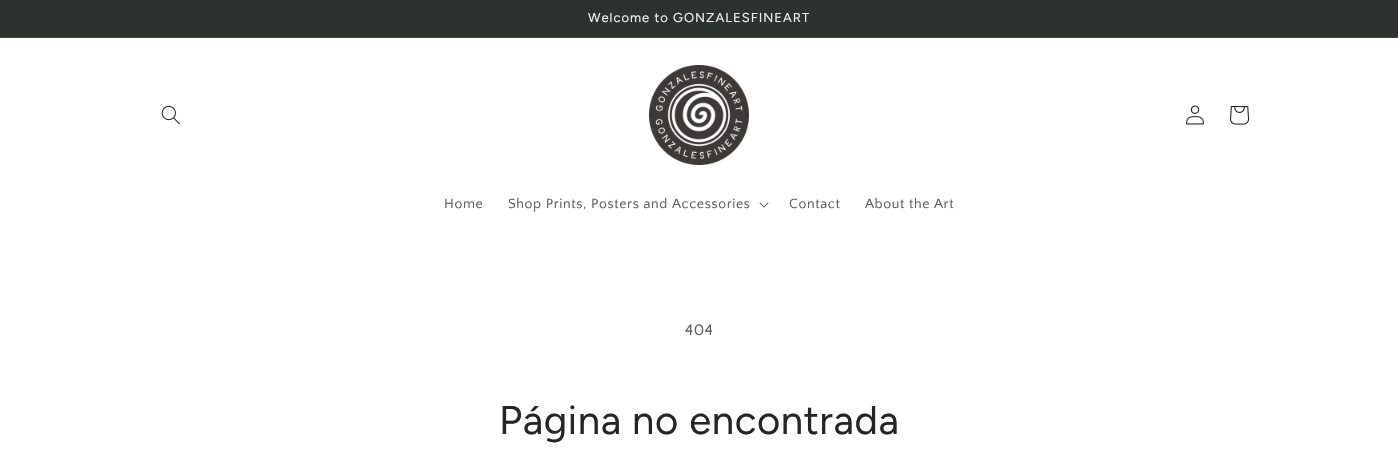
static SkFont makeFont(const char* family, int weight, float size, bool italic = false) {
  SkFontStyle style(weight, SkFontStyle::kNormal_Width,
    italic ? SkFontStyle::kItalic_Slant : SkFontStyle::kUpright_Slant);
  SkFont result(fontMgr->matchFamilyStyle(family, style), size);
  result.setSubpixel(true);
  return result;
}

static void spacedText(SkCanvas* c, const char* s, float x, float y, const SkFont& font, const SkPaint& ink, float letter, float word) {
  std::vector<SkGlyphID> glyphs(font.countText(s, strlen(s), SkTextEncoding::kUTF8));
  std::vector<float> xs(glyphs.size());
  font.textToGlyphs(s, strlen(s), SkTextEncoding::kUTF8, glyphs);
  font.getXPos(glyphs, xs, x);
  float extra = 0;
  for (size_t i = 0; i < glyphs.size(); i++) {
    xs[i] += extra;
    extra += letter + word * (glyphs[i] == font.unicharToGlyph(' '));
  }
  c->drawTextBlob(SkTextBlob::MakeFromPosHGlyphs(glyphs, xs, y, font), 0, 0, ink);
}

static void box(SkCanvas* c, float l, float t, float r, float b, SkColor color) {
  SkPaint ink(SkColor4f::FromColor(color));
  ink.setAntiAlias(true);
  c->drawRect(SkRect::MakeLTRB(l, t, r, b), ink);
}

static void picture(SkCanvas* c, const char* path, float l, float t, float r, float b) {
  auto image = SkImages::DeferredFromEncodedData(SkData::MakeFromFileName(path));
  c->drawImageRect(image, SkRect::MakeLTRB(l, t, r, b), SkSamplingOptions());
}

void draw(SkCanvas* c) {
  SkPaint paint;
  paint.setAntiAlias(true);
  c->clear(0xffffffff);
  box(c, 0, 0, 1398, 37, 0xff2c332f);
  box(c, 0, 37, 1398, 38, 0xff3c423e);
  SkFont face1 = makeFont("Figtree", 400, 13);
  paint.setColor(0xffefecec);
  spacedText(c, "Welcome to GONZALESFINEART", 588, 22, face1, paint, 1, 0);
  picture(c, "img_01.png", 161, 105, 180, 125);
  picture(c, "img_02.png", 649, 65, 749, 165);
  picture(c, "img_03.png", 1186, 105, 1204, 125);
  picture(c, "img_04.png", 1230, 106, 1250, 125);
  SkFont face2 = makeFont("Quattrocento Sans", 400, 14);
  paint.setColor(0xff5c5c5c);
  spacedText(c, "Home", 444, 208, face2, paint, 0.6f, 0);
  spacedText(c, "Shop Prints, Posters and Accessories", 508, 208, face2, paint, 0.6f, 0);
  picture(c, "img_05.png", 759, 202, 769, 208);
  spacedText(c, "Contact", 789, 208, face2, paint, 0.6f, 0);
  spacedText(c, "About the Art", 865, 208, face2, paint, 0.6f, 0);
  SkFont face3 = makeFont("Quattrocento Sans", 400, 16);
  spacedText(c, "404", 685, 335, face3, paint, 0.6f, 0);
  SkFont face4 = makeFont("Figtree", 400, 40);
  paint.setColor(0xff252525);
  spacedText(c, "Página no encontrada", 499, 434, face4, paint, 0.6f, 0);
}
